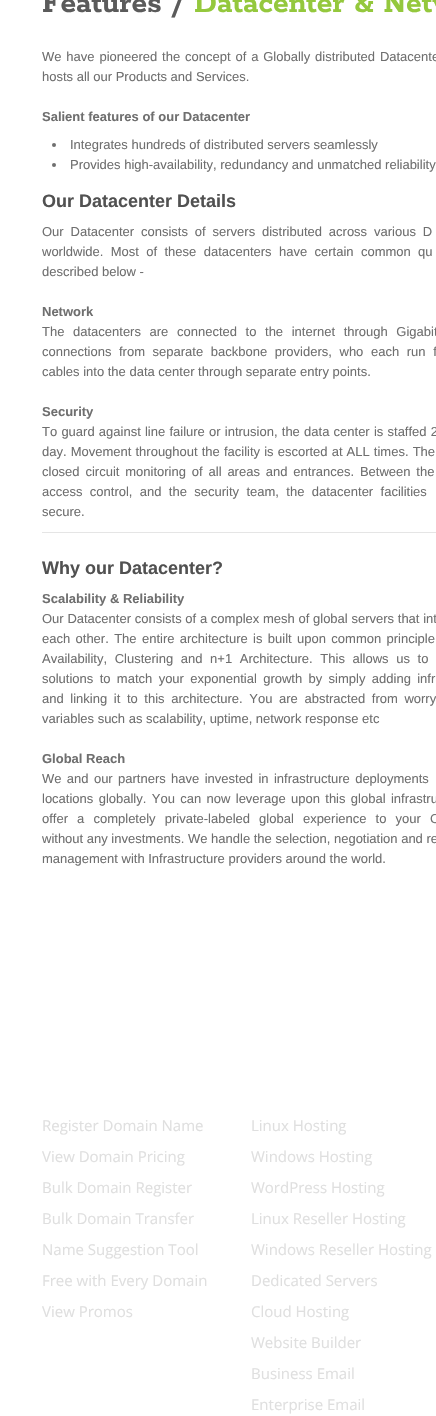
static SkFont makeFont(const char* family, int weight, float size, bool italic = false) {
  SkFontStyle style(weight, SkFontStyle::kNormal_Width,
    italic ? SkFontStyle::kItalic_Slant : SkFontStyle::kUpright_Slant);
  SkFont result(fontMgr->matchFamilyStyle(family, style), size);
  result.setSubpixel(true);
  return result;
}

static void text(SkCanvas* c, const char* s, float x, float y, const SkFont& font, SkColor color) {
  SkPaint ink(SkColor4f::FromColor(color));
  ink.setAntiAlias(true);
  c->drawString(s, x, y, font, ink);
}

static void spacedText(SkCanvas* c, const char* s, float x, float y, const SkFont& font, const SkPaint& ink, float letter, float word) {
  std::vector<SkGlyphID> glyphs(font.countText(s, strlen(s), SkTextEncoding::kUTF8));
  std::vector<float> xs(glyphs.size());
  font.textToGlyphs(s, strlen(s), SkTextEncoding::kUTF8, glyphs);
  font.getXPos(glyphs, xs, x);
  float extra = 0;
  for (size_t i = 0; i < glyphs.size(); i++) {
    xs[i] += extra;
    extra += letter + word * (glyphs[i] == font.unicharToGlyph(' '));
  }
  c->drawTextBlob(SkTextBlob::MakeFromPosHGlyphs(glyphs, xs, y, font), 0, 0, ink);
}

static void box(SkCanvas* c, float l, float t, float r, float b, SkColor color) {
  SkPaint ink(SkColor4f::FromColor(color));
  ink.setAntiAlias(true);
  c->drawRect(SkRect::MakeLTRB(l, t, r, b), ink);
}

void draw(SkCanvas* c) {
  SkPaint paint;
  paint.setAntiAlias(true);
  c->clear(0xffffffff);
  SkFont face1 = makeFont("Rokkitt", 700, 32);
  text(c, "Features /", 42, 12, face1, 0xff5b5b5b);
  text(c, "Datacenter & Netw", 194, 12, face1, 0xff94c83d);
  SkFont face2 = makeFont("Liberation Sans", 400, 13);
  paint.setColor(0xff6f6f6f);
  spacedText(c, "We have pioneered the concept of a Globally distributed Datacente", 42, 61, face2, paint, 0, 1.25f);
  text(c, "hosts all our Products and Services.", 42, 81, face2, 0xff6f6f6f);
  SkFont face3 = makeFont("Liberation Sans", 700, 13);
  text(c, "Salient features of our Datacenter", 42, 121, face3, 0xff6f6f6f);
  c->drawCircle(54, 145, 2, paint);
  text(c, "Integrates hundreds of distributed servers seamlessly", 70, 149, face2, 0xff6f6f6f);
  c->drawCircle(54, 165, 2, paint);
  text(c, "Provides high-availability, redundancy and unmatched reliability", 70, 169, face2, 0xff6f6f6f);
  SkFont face4 = makeFont("Liberation Sans", 700, 18);
  text(c, "Our Datacenter Details", 42, 207, face4, 0xff515151);
  spacedText(c, "Our Datacenter consists of servers distributed across various D", 42, 236, face2, paint, 0, 3.25f);
  spacedText(c, "worldwide. Most of these datacenters have certain common qu", 42, 256, face2, paint, 0, 3.75f);
  text(c, "described below -", 42, 276, face2, 0xff6f6f6f);
  text(c, "Network", 42, 316, face3, 0xff6f6f6f);
  spacedText(c, "The datacenters are connected to the internet through Gigabit", 42, 336, face2, paint, 0, 5);
  spacedText(c, "connections from separate backbone providers, who each run f", 42, 356, face2, paint, 0, 4);
  text(c, "cables into the data center through separate entry points.", 42, 376, face2, 0xff6f6f6f);
  text(c, "Security", 42, 416, face3, 0xff6f6f6f);
  spacedText(c, "To guard against line failure or intrusion, the data center is staffed 2", 42, 436, face2, paint, 0, 0.6f);
  spacedText(c, "day. Movement throughout the facility is escorted at ALL times. The", 42, 456, face2, paint, 0, 0.5f);
  spacedText(c, "closed circuit monitoring of all areas and entrances. Between the", 42, 476, face2, paint, 0, 2.25f);
  spacedText(c, "access control, and the security team, the datacenter facilities", 42, 496, face2, paint, 0, 3.75f);
  text(c, "secure.", 42, 516, face2, 0xff6f6f6f);
  box(c, 42, 532, 436, 533, 0xffe5e5e5);
  text(c, "Why our Datacenter?", 42, 574, face4, 0xff515151);
  text(c, "Scalability & Reliability", 42, 603, face3, 0xff6f6f6f);
  spacedText(c, "Our Datacenter consists of a complex mesh of global servers that int", 42, 623, face2, paint, 0, 0.1f);
  spacedText(c, "each other. The entire architecture is built upon common principle", 42, 643, face2, paint, 0, 1.75f);
  spacedText(c, "Availability, Clustering and n+1 Architecture. This allows us to", 42, 663, face2, paint, 0, 4);
  spacedText(c, "solutions to match your exponential growth by simply adding infr", 42, 683, face2, paint, 0, 2.75f);
  spacedText(c, "and linking it to this architecture. You are abstracted from worry", 42, 703, face2, paint, 0, 3);
  text(c, "variables such as scalability, uptime, network response etc", 42, 723, face2, 0xff6f6f6f);
  text(c, "Global Reach", 42, 763, face3, 0xff6f6f6f);
  spacedText(c, "We and our partners have invested in infrastructure deployments", 42, 783, face2, paint, 0, 1.75f);
  spacedText(c, "locations globally. You can now leverage upon this global infrastru", 42, 803, face2, paint, 0, 1.75f);
  spacedText(c, "offer a completely private-labeled global experience to your C", 42, 823, face2, paint, 0, 5.5f);
  text(c, "without any investments. We handle the selection, negotiation and re", 42, 843, face2, 0xff6f6f6f);
  text(c, "management with Infrastructure providers around the world.", 42, 863, face2, 0xff6f6f6f);
  SkFont face5 = makeFont("Open Sans", 400, 15);
  text(c, "Register Domain Name", 42, 1131, face5, 0xffdfdfdf);
  text(c, "View Domain Pricing", 42, 1162, face5, 0xffdfdfdf);
  text(c, "Bulk Domain Register", 42, 1193, face5, 0xffdfdfdf);
  text(c, "Bulk Domain Transfer", 42, 1224, face5, 0xffdfdfdf);
  text(c, "Name Suggestion Tool", 42, 1255, face5, 0xffdfdfdf);
  text(c, "Free with Every Domain", 42, 1286, face5, 0xffdfdfdf);
  text(c, "View Promos", 42, 1317, face5, 0xffdfdfdf);
  text(c, "Linux Hosting", 251, 1131, face5, 0xffdfdfdf);
  text(c, "Windows Hosting", 251, 1162, face5, 0xffdfdfdf);
  text(c, "WordPress Hosting", 251, 1193, face5, 0xffdfdfdf);
  text(c, "Linux Reseller Hosting", 251, 1224, face5, 0xffdfdfdf);
  text(c, "Windows Reseller Hosting", 251, 1255, face5, 0xffdfdfdf);
  text(c, "Dedicated Servers", 251, 1286, face5, 0xffdfdfdf);
  text(c, "Cloud Hosting", 251, 1317, face5, 0xffdfdfdf);
  text(c, "Website Builder", 251, 1348, face5, 0xffdfdfdf);
  text(c, "Business Email", 251, 1379, face5, 0xffdfdfdf);
  text(c, "Enterprise Email", 251, 1410, face5, 0xffdfdfdf);
}
